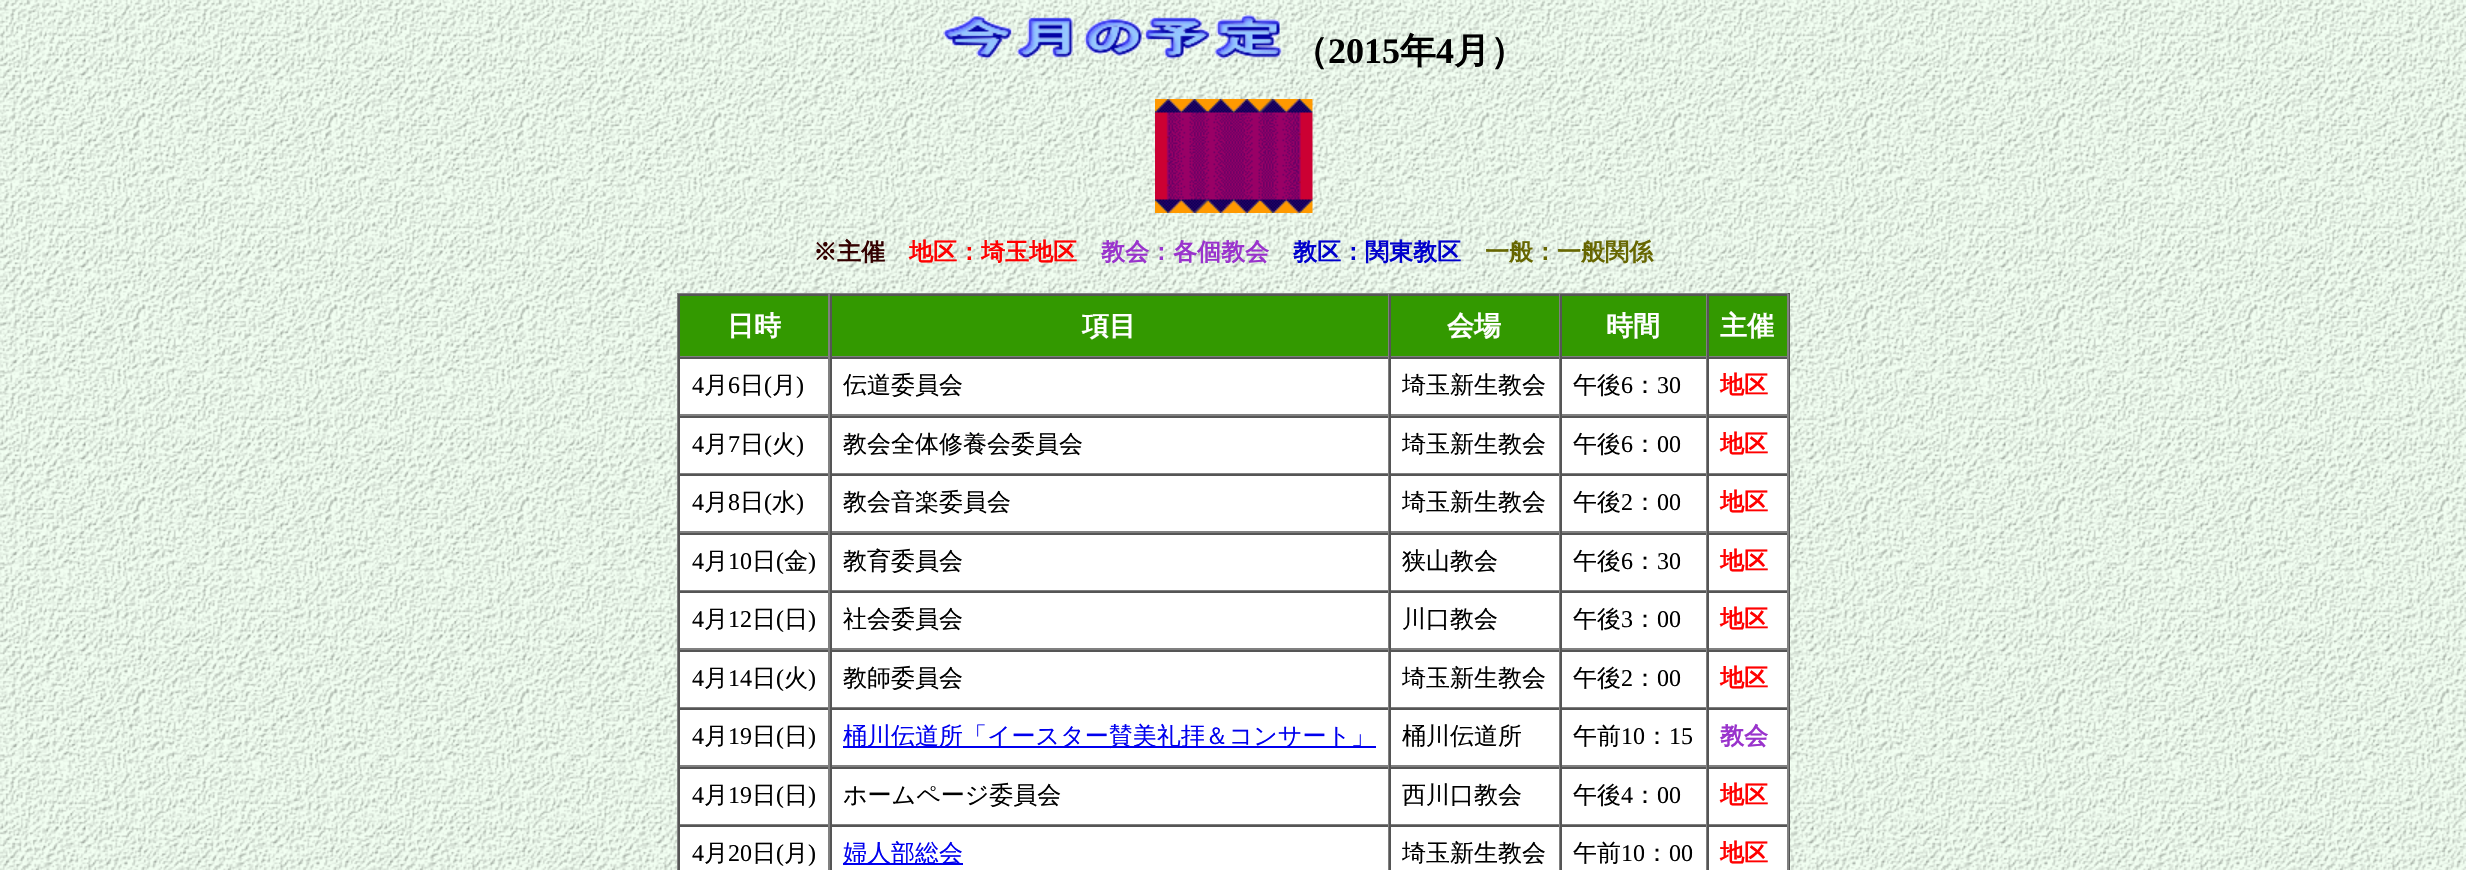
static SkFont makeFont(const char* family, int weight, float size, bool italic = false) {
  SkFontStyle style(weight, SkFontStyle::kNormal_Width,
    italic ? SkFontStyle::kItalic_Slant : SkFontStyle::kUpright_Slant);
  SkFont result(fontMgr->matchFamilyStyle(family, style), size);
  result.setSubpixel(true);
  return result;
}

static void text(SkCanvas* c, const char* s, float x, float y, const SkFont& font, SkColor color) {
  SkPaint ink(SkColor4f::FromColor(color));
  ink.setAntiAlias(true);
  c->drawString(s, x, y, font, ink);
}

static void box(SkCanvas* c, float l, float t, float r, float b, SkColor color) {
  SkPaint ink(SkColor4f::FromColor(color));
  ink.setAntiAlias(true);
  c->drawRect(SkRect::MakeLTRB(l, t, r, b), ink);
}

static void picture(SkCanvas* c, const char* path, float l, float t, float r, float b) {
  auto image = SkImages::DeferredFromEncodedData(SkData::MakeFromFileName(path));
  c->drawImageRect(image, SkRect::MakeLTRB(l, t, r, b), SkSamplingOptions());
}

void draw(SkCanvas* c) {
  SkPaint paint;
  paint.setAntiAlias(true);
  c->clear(0xffffffff);
  picture(c, "img_01.png", 0, 0, 2466, 870);
  picture(c, "img_02.png", 943, 14, 1282, 59);
  SkFont face1 = makeFont("WenQuanYi Zen Hei", 700, 36);
  text(c, "（", 1292, 63, face1, 0xff000000);
  SkFont face2 = makeFont("Liberation Serif", 700, 36);
  text(c, "2015", 1328, 63, face2, 0xff000000);
  text(c, "年", 1400, 63, face1, 0xff000000);
  text(c, "4", 1436, 63, face2, 0xff000000);
  text(c, "月）", 1454, 63, face1, 0xff000000);
  picture(c, "img_03.png", 1155, 99, 1313, 213);
  SkFont face3 = makeFont("WenQuanYi Zen Hei", 700, 24);
  text(c, "※主催", 813, 260, face3, 0xff330000);
  text(c, "地区：埼玉地区", 909, 260, face3, 0xffff0000);
  text(c, "教会：各個教会", 1101, 260, face3, 0xff9933cc);
  text(c, "教区：関東教区", 1293, 260, face3, 0xff0000cc);
  text(c, "一般：一般関係", 1485, 260, face3, 0xff666600);
  box(c, 680, 359, 1787, 870, 0xffffffff);
  box(c, 677, 293, 1790, 294, 0xff808080);
  box(c, 1788, 293, 1790, 870, 0xff555555);
  box(c, 677, 293, 679, 870, 0xff808080);
  box(c, 680, 296, 828, 356, 0xff339900);
  box(c, 678, 294, 1788, 296, 0xff555555);
  box(c, 828, 294, 830, 357, 0xff808080);
  box(c, 678, 356, 830, 357, 0xff808080);
  box(c, 678, 294, 680, 357, 0xff555555);
  SkFont face4 = makeFont("WenQuanYi Zen Hei", 700, 27);
  text(c, "日時", 727, 335, face4, 0xffffffff);
  box(c, 832, 296, 1388, 356, 0xff339900);
  box(c, 1388, 294, 1389, 357, 0xff808080);
  box(c, 830, 356, 1389, 357, 0xff808080);
  box(c, 830, 294, 832, 357, 0xff555555);
  text(c, "項目", 1082, 335, face4, 0xffffffff);
  box(c, 1391, 296, 1559, 356, 0xff339900);
  box(c, 1559, 294, 1560, 357, 0xff808080);
  box(c, 1389, 356, 1560, 357, 0xff808080);
  box(c, 1389, 294, 1391, 357, 0xff555555);
  text(c, "会場", 1447, 335, face4, 0xffffffff);
  box(c, 1562, 296, 1706, 356, 0xff339900);
  box(c, 1706, 294, 1707, 357, 0xff808080);
  box(c, 1560, 356, 1707, 357, 0xff808080);
  box(c, 1560, 294, 1562, 357, 0xff555555);
  text(c, "時間", 1606, 335, face4, 0xffffffff);
  box(c, 1709, 296, 1787, 356, 0xff339900);
  box(c, 1787, 294, 1789, 357, 0xff808080);
  box(c, 1707, 356, 1788, 357, 0xff808080);
  box(c, 1707, 294, 1709, 357, 0xff555555);
  text(c, "主催", 1720, 335, face4, 0xffffffff);
  box(c, 678, 357, 1788, 359, 0xff555555);
  box(c, 828, 357, 830, 416, 0xff808080);
  box(c, 678, 414, 830, 416, 0xff808080);
  box(c, 678, 357, 680, 416, 0xff555555);
  SkFont face5 = makeFont("Liberation Serif", 400, 24);
  text(c, "4", 692, 393, face5, 0xff000000);
  SkFont face6 = makeFont("WenQuanYi Zen Hei", 500, 24);
  text(c, "月", 704, 393, face6, 0xff000000);
  text(c, "6", 728, 393, face5, 0xff000000);
  text(c, "日", 740, 393, face6, 0xff000000);
  text(c, "(", 764, 393, face5, 0xff000000);
  text(c, "月", 772, 393, face6, 0xff000000);
  text(c, ")", 796, 393, face5, 0xff000000);
  box(c, 1388, 357, 1389, 416, 0xff808080);
  box(c, 830, 414, 1389, 416, 0xff808080);
  box(c, 830, 357, 832, 416, 0xff555555);
  text(c, "伝道委員会", 843, 393, face6, 0xff000000);
  box(c, 1559, 357, 1560, 416, 0xff808080);
  box(c, 1389, 414, 1560, 416, 0xff808080);
  box(c, 1389, 357, 1391, 416, 0xff555555);
  text(c, "埼玉新生教会", 1402, 393, face6, 0xff000000);
  box(c, 1706, 357, 1707, 416, 0xff808080);
  box(c, 1560, 414, 1707, 416, 0xff808080);
  box(c, 1560, 357, 1562, 416, 0xff555555);
  text(c, "午後", 1573, 393, face6, 0xff000000);
  text(c, "6", 1621, 393, face5, 0xff000000);
  text(c, "：", 1633, 393, face6, 0xff000000);
  text(c, "30", 1657, 393, face5, 0xff000000);
  box(c, 1787, 357, 1789, 416, 0xff808080);
  box(c, 1707, 414, 1788, 416, 0xff808080);
  box(c, 1707, 357, 1709, 416, 0xff555555);
  text(c, "地区", 1720, 393, face3, 0xffff0000);
  box(c, 678, 416, 1788, 418, 0xff555555);
  box(c, 828, 416, 830, 474, 0xff808080);
  box(c, 678, 473, 830, 474, 0xff808080);
  box(c, 678, 416, 680, 474, 0xff555555);
  text(c, "4", 692, 452, face5, 0xff000000);
  text(c, "月", 704, 452, face6, 0xff000000);
  text(c, "7", 728, 452, face5, 0xff000000);
  text(c, "日", 740, 452, face6, 0xff000000);
  text(c, "(", 764, 452, face5, 0xff000000);
  text(c, "火", 772, 452, face6, 0xff000000);
  text(c, ")", 796, 452, face5, 0xff000000);
  box(c, 1388, 416, 1389, 474, 0xff808080);
  box(c, 830, 473, 1389, 474, 0xff808080);
  box(c, 830, 416, 832, 474, 0xff555555);
  text(c, "教会全体修養会委員会", 843, 452, face6, 0xff000000);
  box(c, 1559, 416, 1560, 474, 0xff808080);
  box(c, 1389, 473, 1560, 474, 0xff808080);
  box(c, 1389, 416, 1391, 474, 0xff555555);
  text(c, "埼玉新生教会", 1402, 452, face6, 0xff000000);
  box(c, 1706, 416, 1707, 474, 0xff808080);
  box(c, 1560, 473, 1707, 474, 0xff808080);
  box(c, 1560, 416, 1562, 474, 0xff555555);
  text(c, "午後", 1573, 452, face6, 0xff000000);
  text(c, "6", 1621, 452, face5, 0xff000000);
  text(c, "：", 1633, 452, face6, 0xff000000);
  text(c, "00", 1657, 452, face5, 0xff000000);
  box(c, 1787, 416, 1789, 474, 0xff808080);
  box(c, 1707, 473, 1788, 474, 0xff808080);
  box(c, 1707, 416, 1709, 474, 0xff555555);
  text(c, "地区", 1720, 452, face3, 0xffff0000);
  box(c, 678, 474, 1788, 476, 0xff555555);
  box(c, 828, 474, 830, 533, 0xff808080);
  box(c, 678, 531, 830, 533, 0xff808080);
  box(c, 678, 474, 680, 533, 0xff555555);
  text(c, "4", 692, 510, face5, 0xff000000);
  text(c, "月", 704, 510, face6, 0xff000000);
  text(c, "8", 728, 510, face5, 0xff000000);
  text(c, "日", 740, 510, face6, 0xff000000);
  text(c, "(", 764, 510, face5, 0xff000000);
  text(c, "水", 772, 510, face6, 0xff000000);
  text(c, ")", 796, 510, face5, 0xff000000);
  box(c, 1388, 474, 1389, 533, 0xff808080);
  box(c, 830, 531, 1389, 533, 0xff808080);
  box(c, 830, 474, 832, 533, 0xff555555);
  text(c, "教会音楽委員会", 843, 510, face6, 0xff000000);
  box(c, 1559, 474, 1560, 533, 0xff808080);
  box(c, 1389, 531, 1560, 533, 0xff808080);
  box(c, 1389, 474, 1391, 533, 0xff555555);
  text(c, "埼玉新生教会", 1402, 510, face6, 0xff000000);
  box(c, 1706, 474, 1707, 533, 0xff808080);
  box(c, 1560, 531, 1707, 533, 0xff808080);
  box(c, 1560, 474, 1562, 533, 0xff555555);
  text(c, "午後", 1573, 510, face6, 0xff000000);
  text(c, "2", 1621, 510, face5, 0xff000000);
  text(c, "：", 1633, 510, face6, 0xff000000);
  text(c, "00", 1657, 510, face5, 0xff000000);
  box(c, 1787, 474, 1789, 533, 0xff808080);
  box(c, 1707, 531, 1788, 533, 0xff808080);
  box(c, 1707, 474, 1709, 533, 0xff555555);
  text(c, "地区", 1720, 510, face3, 0xffff0000);
  box(c, 678, 533, 1788, 535, 0xff555555);
  box(c, 828, 533, 830, 591, 0xff808080);
  box(c, 678, 590, 830, 591, 0xff808080);
  box(c, 678, 533, 680, 591, 0xff555555);
  text(c, "4", 692, 569, face5, 0xff000000);
  text(c, "月", 704, 569, face6, 0xff000000);
  text(c, "10", 728, 569, face5, 0xff000000);
  text(c, "日", 752, 569, face6, 0xff000000);
  text(c, "(", 776, 569, face5, 0xff000000);
  text(c, "金", 784, 569, face6, 0xff000000);
  text(c, ")", 808, 569, face5, 0xff000000);
  box(c, 1388, 533, 1389, 591, 0xff808080);
  box(c, 830, 590, 1389, 591, 0xff808080);
  box(c, 830, 533, 832, 591, 0xff555555);
  text(c, "教育委員会", 843, 569, face6, 0xff000000);
  box(c, 1559, 533, 1560, 591, 0xff808080);
  box(c, 1389, 590, 1560, 591, 0xff808080);
  box(c, 1389, 533, 1391, 591, 0xff555555);
  text(c, "狭山教会", 1402, 569, face6, 0xff000000);
  box(c, 1706, 533, 1707, 591, 0xff808080);
  box(c, 1560, 590, 1707, 591, 0xff808080);
  box(c, 1560, 533, 1562, 591, 0xff555555);
  text(c, "午後", 1573, 569, face6, 0xff000000);
  text(c, "6", 1621, 569, face5, 0xff000000);
  text(c, "：", 1633, 569, face6, 0xff000000);
  text(c, "30", 1657, 569, face5, 0xff000000);
  box(c, 1787, 533, 1789, 591, 0xff808080);
  box(c, 1707, 590, 1788, 591, 0xff808080);
  box(c, 1707, 533, 1709, 591, 0xff555555);
  text(c, "地区", 1720, 569, face3, 0xffff0000);
  box(c, 678, 591, 1788, 593, 0xff555555);
  box(c, 828, 591, 830, 650, 0xff808080);
  box(c, 678, 648, 830, 650, 0xff808080);
  box(c, 678, 591, 680, 650, 0xff555555);
  text(c, "4", 692, 627, face5, 0xff000000);
  text(c, "月", 704, 627, face6, 0xff000000);
  text(c, "12", 728, 627, face5, 0xff000000);
  text(c, "日", 752, 627, face6, 0xff000000);
  text(c, "(", 776, 627, face5, 0xff000000);
  text(c, "日", 784, 627, face6, 0xff000000);
  text(c, ")", 808, 627, face5, 0xff000000);
  box(c, 1388, 591, 1389, 650, 0xff808080);
  box(c, 830, 648, 1389, 650, 0xff808080);
  box(c, 830, 591, 832, 650, 0xff555555);
  text(c, "社会委員会", 843, 627, face6, 0xff000000);
  box(c, 1559, 591, 1560, 650, 0xff808080);
  box(c, 1389, 648, 1560, 650, 0xff808080);
  box(c, 1389, 591, 1391, 650, 0xff555555);
  text(c, "川口教会", 1402, 627, face6, 0xff000000);
  box(c, 1706, 591, 1707, 650, 0xff808080);
  box(c, 1560, 648, 1707, 650, 0xff808080);
  box(c, 1560, 591, 1562, 650, 0xff555555);
  text(c, "午後", 1573, 627, face6, 0xff000000);
  text(c, "3", 1621, 627, face5, 0xff000000);
  text(c, "：", 1633, 627, face6, 0xff000000);
  text(c, "00", 1657, 627, face5, 0xff000000);
  box(c, 1787, 591, 1789, 650, 0xff808080);
  box(c, 1707, 648, 1788, 650, 0xff808080);
  box(c, 1707, 591, 1709, 650, 0xff555555);
  text(c, "地区", 1720, 627, face3, 0xffff0000);
  box(c, 678, 650, 1788, 652, 0xff555555);
  box(c, 828, 650, 830, 708, 0xff808080);
  box(c, 678, 707, 830, 708, 0xff808080);
  box(c, 678, 650, 680, 708, 0xff555555);
  text(c, "4", 692, 686, face5, 0xff000000);
  text(c, "月", 704, 686, face6, 0xff000000);
  text(c, "14", 728, 686, face5, 0xff000000);
  text(c, "日", 752, 686, face6, 0xff000000);
  text(c, "(", 776, 686, face5, 0xff000000);
  text(c, "火", 784, 686, face6, 0xff000000);
  text(c, ")", 808, 686, face5, 0xff000000);
  box(c, 1388, 650, 1389, 708, 0xff808080);
  box(c, 830, 707, 1389, 708, 0xff808080);
  box(c, 830, 650, 832, 708, 0xff555555);
  text(c, "教師委員会", 843, 686, face6, 0xff000000);
  box(c, 1559, 650, 1560, 708, 0xff808080);
  box(c, 1389, 707, 1560, 708, 0xff808080);
  box(c, 1389, 650, 1391, 708, 0xff555555);
  text(c, "埼玉新生教会", 1402, 686, face6, 0xff000000);
  box(c, 1706, 650, 1707, 708, 0xff808080);
  box(c, 1560, 707, 1707, 708, 0xff808080);
  box(c, 1560, 650, 1562, 708, 0xff555555);
  text(c, "午後", 1573, 686, face6, 0xff000000);
  text(c, "2", 1621, 686, face5, 0xff000000);
  text(c, "：", 1633, 686, face6, 0xff000000);
  text(c, "00", 1657, 686, face5, 0xff000000);
  box(c, 1787, 650, 1789, 708, 0xff808080);
  box(c, 1707, 707, 1788, 708, 0xff808080);
  box(c, 1707, 650, 1709, 708, 0xff555555);
  text(c, "地区", 1720, 686, face3, 0xffff0000);
  box(c, 678, 708, 1788, 710, 0xff555555);
  box(c, 828, 708, 830, 767, 0xff808080);
  box(c, 678, 765, 830, 767, 0xff808080);
  box(c, 678, 708, 680, 767, 0xff555555);
  text(c, "4", 692, 744, face5, 0xff000000);
  text(c, "月", 704, 744, face6, 0xff000000);
  text(c, "19", 728, 744, face5, 0xff000000);
  text(c, "日", 752, 744, face6, 0xff000000);
  text(c, "(", 776, 744, face5, 0xff000000);
  text(c, "日", 784, 744, face6, 0xff000000);
  text(c, ")", 808, 744, face5, 0xff000000);
  box(c, 1388, 708, 1389, 767, 0xff808080);
  box(c, 830, 765, 1389, 767, 0xff808080);
  box(c, 830, 708, 832, 767, 0xff555555);
  box(c, 843, 746, 1376, 748, 0xff0000ee);
  text(c, "桶川伝道所「イースター賛美礼拝＆コンサート」", 843, 744, face6, 0xff0000ee);
  box(c, 1559, 708, 1560, 767, 0xff808080);
  box(c, 1389, 765, 1560, 767, 0xff808080);
  box(c, 1389, 708, 1391, 767, 0xff555555);
  text(c, "桶川伝道所", 1402, 744, face6, 0xff000000);
  box(c, 1706, 708, 1707, 767, 0xff808080);
  box(c, 1560, 765, 1707, 767, 0xff808080);
  box(c, 1560, 708, 1562, 767, 0xff555555);
  text(c, "午前", 1573, 744, face6, 0xff000000);
  text(c, "10", 1621, 744, face5, 0xff000000);
  text(c, "：", 1645, 744, face6, 0xff000000);
  text(c, "15", 1669, 744, face5, 0xff000000);
  box(c, 1787, 708, 1789, 767, 0xff808080);
  box(c, 1707, 765, 1788, 767, 0xff808080);
  box(c, 1707, 708, 1709, 767, 0xff555555);
  text(c, "教会", 1720, 744, face3, 0xff9933cc);
  box(c, 678, 767, 1788, 769, 0xff555555);
  box(c, 828, 767, 830, 825, 0xff808080);
  box(c, 678, 824, 830, 825, 0xff808080);
  box(c, 678, 767, 680, 825, 0xff555555);
  text(c, "4", 692, 803, face5, 0xff000000);
  text(c, "月", 704, 803, face6, 0xff000000);
  text(c, "19", 728, 803, face5, 0xff000000);
  text(c, "日", 752, 803, face6, 0xff000000);
  text(c, "(", 776, 803, face5, 0xff000000);
  text(c, "日", 784, 803, face6, 0xff000000);
  text(c, ")", 808, 803, face5, 0xff000000);
  box(c, 1388, 767, 1389, 825, 0xff808080);
  box(c, 830, 824, 1389, 825, 0xff808080);
  box(c, 830, 767, 832, 825, 0xff555555);
  text(c, "ホームページ委員会", 843, 803, face6, 0xff000000);
  box(c, 1559, 767, 1560, 825, 0xff808080);
  box(c, 1389, 824, 1560, 825, 0xff808080);
  box(c, 1389, 767, 1391, 825, 0xff555555);
  text(c, "西川口教会", 1402, 803, face6, 0xff000000);
  box(c, 1706, 767, 1707, 825, 0xff808080);
  box(c, 1560, 824, 1707, 825, 0xff808080);
  box(c, 1560, 767, 1562, 825, 0xff555555);
  text(c, "午後", 1573, 803, face6, 0xff000000);
  text(c, "4", 1621, 803, face5, 0xff000000);
  text(c, "：", 1633, 803, face6, 0xff000000);
  text(c, "00", 1657, 803, face5, 0xff000000);
  box(c, 1787, 767, 1789, 825, 0xff808080);
  box(c, 1707, 824, 1788, 825, 0xff808080);
  box(c, 1707, 767, 1709, 825, 0xff555555);
  text(c, "地区", 1720, 803, face3, 0xffff0000);
  box(c, 678, 825, 1788, 827, 0xff555555);
  box(c, 828, 825, 830, 870, 0xff808080);
  box(c, 678, 825, 680, 870, 0xff555555);
  text(c, "4", 692, 861, face5, 0xff000000);
  text(c, "月", 704, 861, face6, 0xff000000);
  text(c, "20", 728, 861, face5, 0xff000000);
  text(c, "日", 752, 861, face6, 0xff000000);
  text(c, "(", 776, 861, face5, 0xff000000);
  text(c, "月", 784, 861, face6, 0xff000000);
  text(c, ")", 808, 861, face5, 0xff000000);
  box(c, 1388, 825, 1389, 870, 0xff808080);
  box(c, 830, 825, 832, 870, 0xff555555);
  box(c, 843, 863, 963, 865, 0xff0000ee);
  text(c, "婦人部総会", 843, 861, face6, 0xff0000ee);
  box(c, 1559, 825, 1560, 870, 0xff808080);
  box(c, 1389, 825, 1391, 870, 0xff555555);
  text(c, "埼玉新生教会", 1402, 861, face6, 0xff000000);
  box(c, 1706, 825, 1707, 870, 0xff808080);
  box(c, 1560, 825, 1562, 870, 0xff555555);
  text(c, "午前", 1573, 861, face6, 0xff000000);
  text(c, "10", 1621, 861, face5, 0xff000000);
  text(c, "：", 1645, 861, face6, 0xff000000);
  text(c, "00", 1669, 861, face5, 0xff000000);
  box(c, 1787, 825, 1789, 870, 0xff808080);
  box(c, 1707, 825, 1709, 870, 0xff555555);
  text(c, "地区", 1720, 861, face3, 0xffff0000);
}
